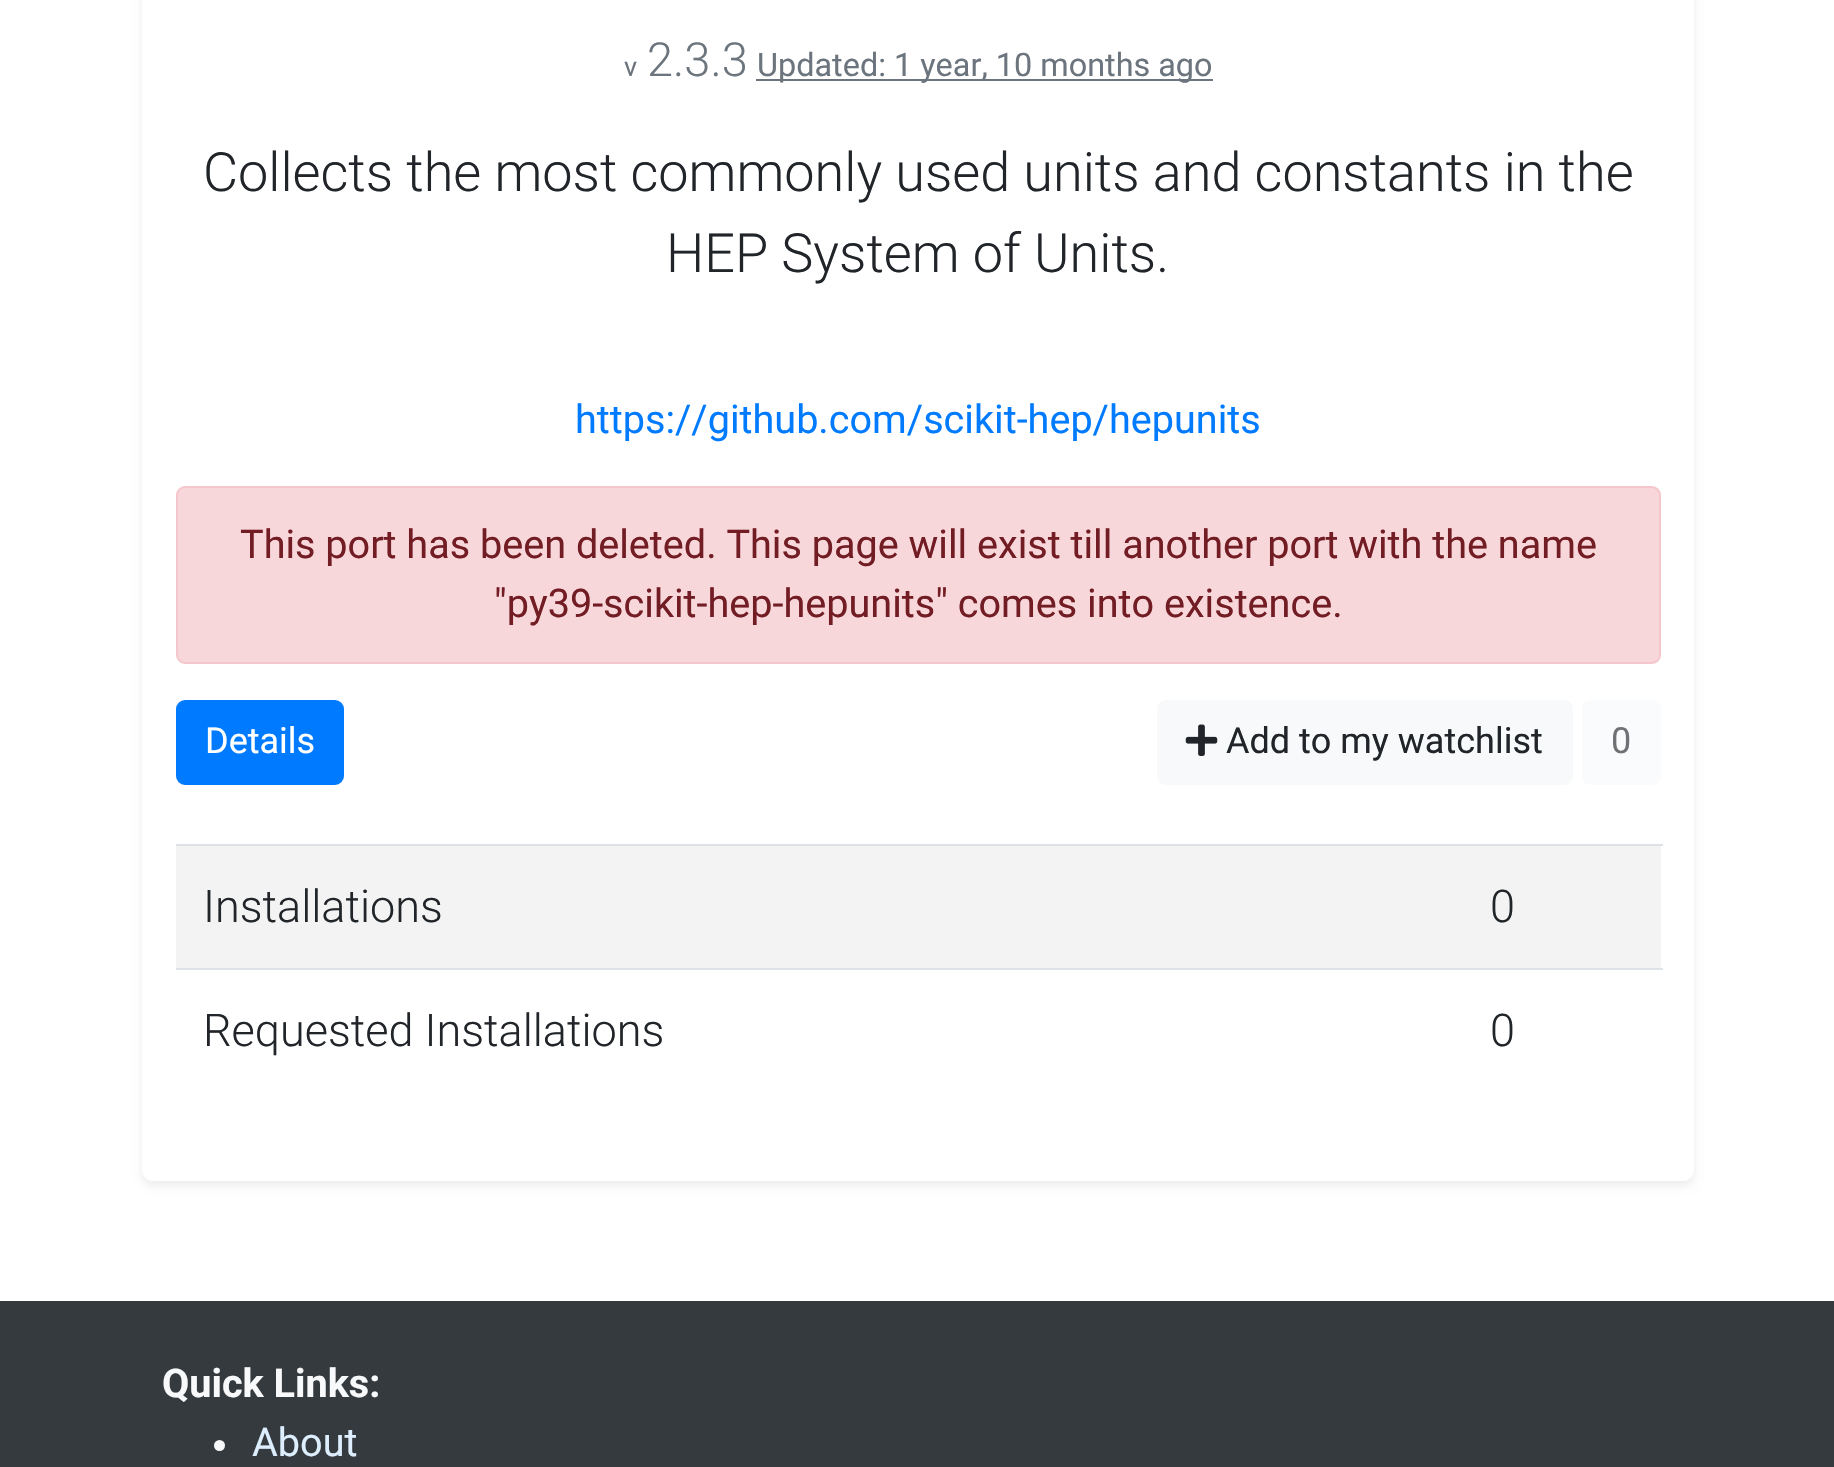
static SkFont makeFont(const char* family, int weight, float size, bool italic = false) {
  SkFontStyle style(weight, SkFontStyle::kNormal_Width,
    italic ? SkFontStyle::kItalic_Slant : SkFontStyle::kUpright_Slant);
  SkFont result(fontMgr->matchFamilyStyle(family, style), size);
  result.setSubpixel(true);
  return result;
}

static void text(SkCanvas* c, const char* s, float x, float y, const SkFont& font, SkColor color) {
  SkPaint ink(SkColor4f::FromColor(color));
  ink.setAntiAlias(true);
  c->drawString(s, x, y, font, ink);
}

static void box(SkCanvas* c, float l, float t, float r, float b, SkColor color) {
  SkPaint ink(SkColor4f::FromColor(color));
  ink.setAntiAlias(true);
  c->drawRect(SkRect::MakeLTRB(l, t, r, b), ink);
}

static void roundBox(SkCanvas* c, float l, float t, float r, float b, float radius, SkColor color) {
  SkPaint ink(SkColor4f::FromColor(color));
  ink.setAntiAlias(true);
  c->drawRoundRect(SkRect::MakeLTRB(l, t, r, b), radius, radius, ink);
}

static void picture(SkCanvas* c, const char* path, float l, float t, float r, float b) {
  auto image = SkImages::DeferredFromEncodedData(SkData::MakeFromFileName(path));
  c->drawImageRect(image, SkRect::MakeLTRB(l, t, r, b), SkSamplingOptions());
}

void draw(SkCanvas* c) {
  SkPaint paint;
  paint.setAntiAlias(true);
  c->clear(0xffffffff);
  c->save();
  c->clipPath(SkPathBuilder(SkPathFillType::kEvenOdd).moveTo(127, 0).lineTo(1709, 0).lineTo(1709, 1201).lineTo(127, 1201).close().moveTo(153, -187).lineTo(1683, -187).cubicTo(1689, -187, 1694, -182, 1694, -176).lineTo(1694, 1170).cubicTo(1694, 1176, 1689, 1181, 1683, 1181).lineTo(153, 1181).cubicTo(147, 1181, 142, 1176, 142, 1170).lineTo(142, -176).cubicTo(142, -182, 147, -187, 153, -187).close().detach(), true);
  paint.setColor(0x12000000);
  paint.setMaskFilter(SkMaskFilter::MakeBlur(kNormal_SkBlurStyle, 4.5f));
  c->drawRoundRect(SkRect::MakeLTRB(142, -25, 1694, 1186), 11, 11, paint);
  paint.setMaskFilter(nullptr);
  c->restore();
  SkFont face1 = makeFont("Roboto", 400, 27);
  text(c, "v", 624, 76, face1, 0xff6c757d);
  SkFont face2 = makeFont("Roboto", 300, 47);
  text(c, "2.3.3", 647, 76, face2, 0xff6c757d);
  box(c, 756, 79, 1213, 81, 0xff6c757d);
  SkFont face3 = makeFont("Roboto", 400, 32.4f);
  text(c, "Updated: 1 year, 10 months ago", 757, 76, face3, 0xff6c757d);
  SkFont face4 = makeFont("Roboto", 300, 54);
  text(c, "Collects the most commonly used units and constants in the", 203, 191, face4, 0xff212529);
  text(c, "HEP System of Units.", 666, 272, face4, 0xff212529);
  SkFont face5 = makeFont("Roboto", 400, 39.6f);
  text(c, "https://github.com/scikit-hep/hepunits", 575, 433, face5, 0xff007bff);
  paint.setColor(0xfff8d7da);
  c->drawRoundRect(SkRect::MakeLTRB(177, 487, 1660, 663), 8, 8, paint);
  paint.setStyle(SkPaint::kStroke_Style);
  paint.setStrokeWidth(2);
  paint.setColor(0xfff5c6cb);
  c->drawRoundRect(SkRect::MakeLTRB(177, 487, 1660, 663), 8, 8, paint);
  text(c, "This port has been deleted. This page will exist till another port with the name", 240, 558, face5, 0xff721c24);
  text(c, "\"py39-scikit-hep-hepunits\" comes into existence.", 494, 617, face5, 0xff721c24);
  paint.setStyle(SkPaint::kFill_Style);
  paint.setColor(0xff007bff);
  c->drawRoundRect(SkRect::MakeLTRB(177, 701, 343, 784), 8, 8, paint);
  paint.setStyle(SkPaint::kStroke_Style);
  c->drawRoundRect(SkRect::MakeLTRB(177, 701, 343, 784), 8, 8, paint);
  SkFont face6 = makeFont("Roboto", 400, 36);
  text(c, "Details", 205, 753, face6, 0xffffffff);
  roundBox(c, 1157, 700, 1573, 785, 9, 0xfff8f9fa);
  picture(c, "img_01.png", 1185, 724, 1218, 756);
  text(c, "Add to my watchlist", 1226, 753, face6, 0xff212529);
  roundBox(c, 1582, 700, 1661, 785, 9, 0xfffafbfc);
  text(c, "0", 1611, 753, face6, 0xff6f7174);
  box(c, 176, 846, 1661, 968, 0xfff3f3f3);
  SkFont face7 = makeFont("Roboto", 300, 45);
  text(c, "Installations", 203, 922, face7, 0xff212529);
  box(c, 176, 844, 1663, 846, 0xffdee2e6);
  text(c, "0", 1490, 922, face7, 0xff212529);
  text(c, "Requested Installations", 203, 1046, face7, 0xff212529);
  box(c, 176, 968, 1663, 970, 0xffdee2e6);
  text(c, "0", 1490, 1046, face7, 0xff212529);
  box(c, 0, 1301, 1834, 1467, 0xff353a3f);
  SkFont face8 = makeFont("Roboto", 700, 39.6f);
  text(c, "Quick Links:", 162, 1397, face8, 0xfff8f9fa);
  paint.setStyle(SkPaint::kFill_Style);
  paint.setColor(0xfff8f9fa);
  c->drawCircle(219.5f, 1445.5f, 5.5f, paint);
  text(c, "About", 252, 1456, face5, 0xffddefff);
}
